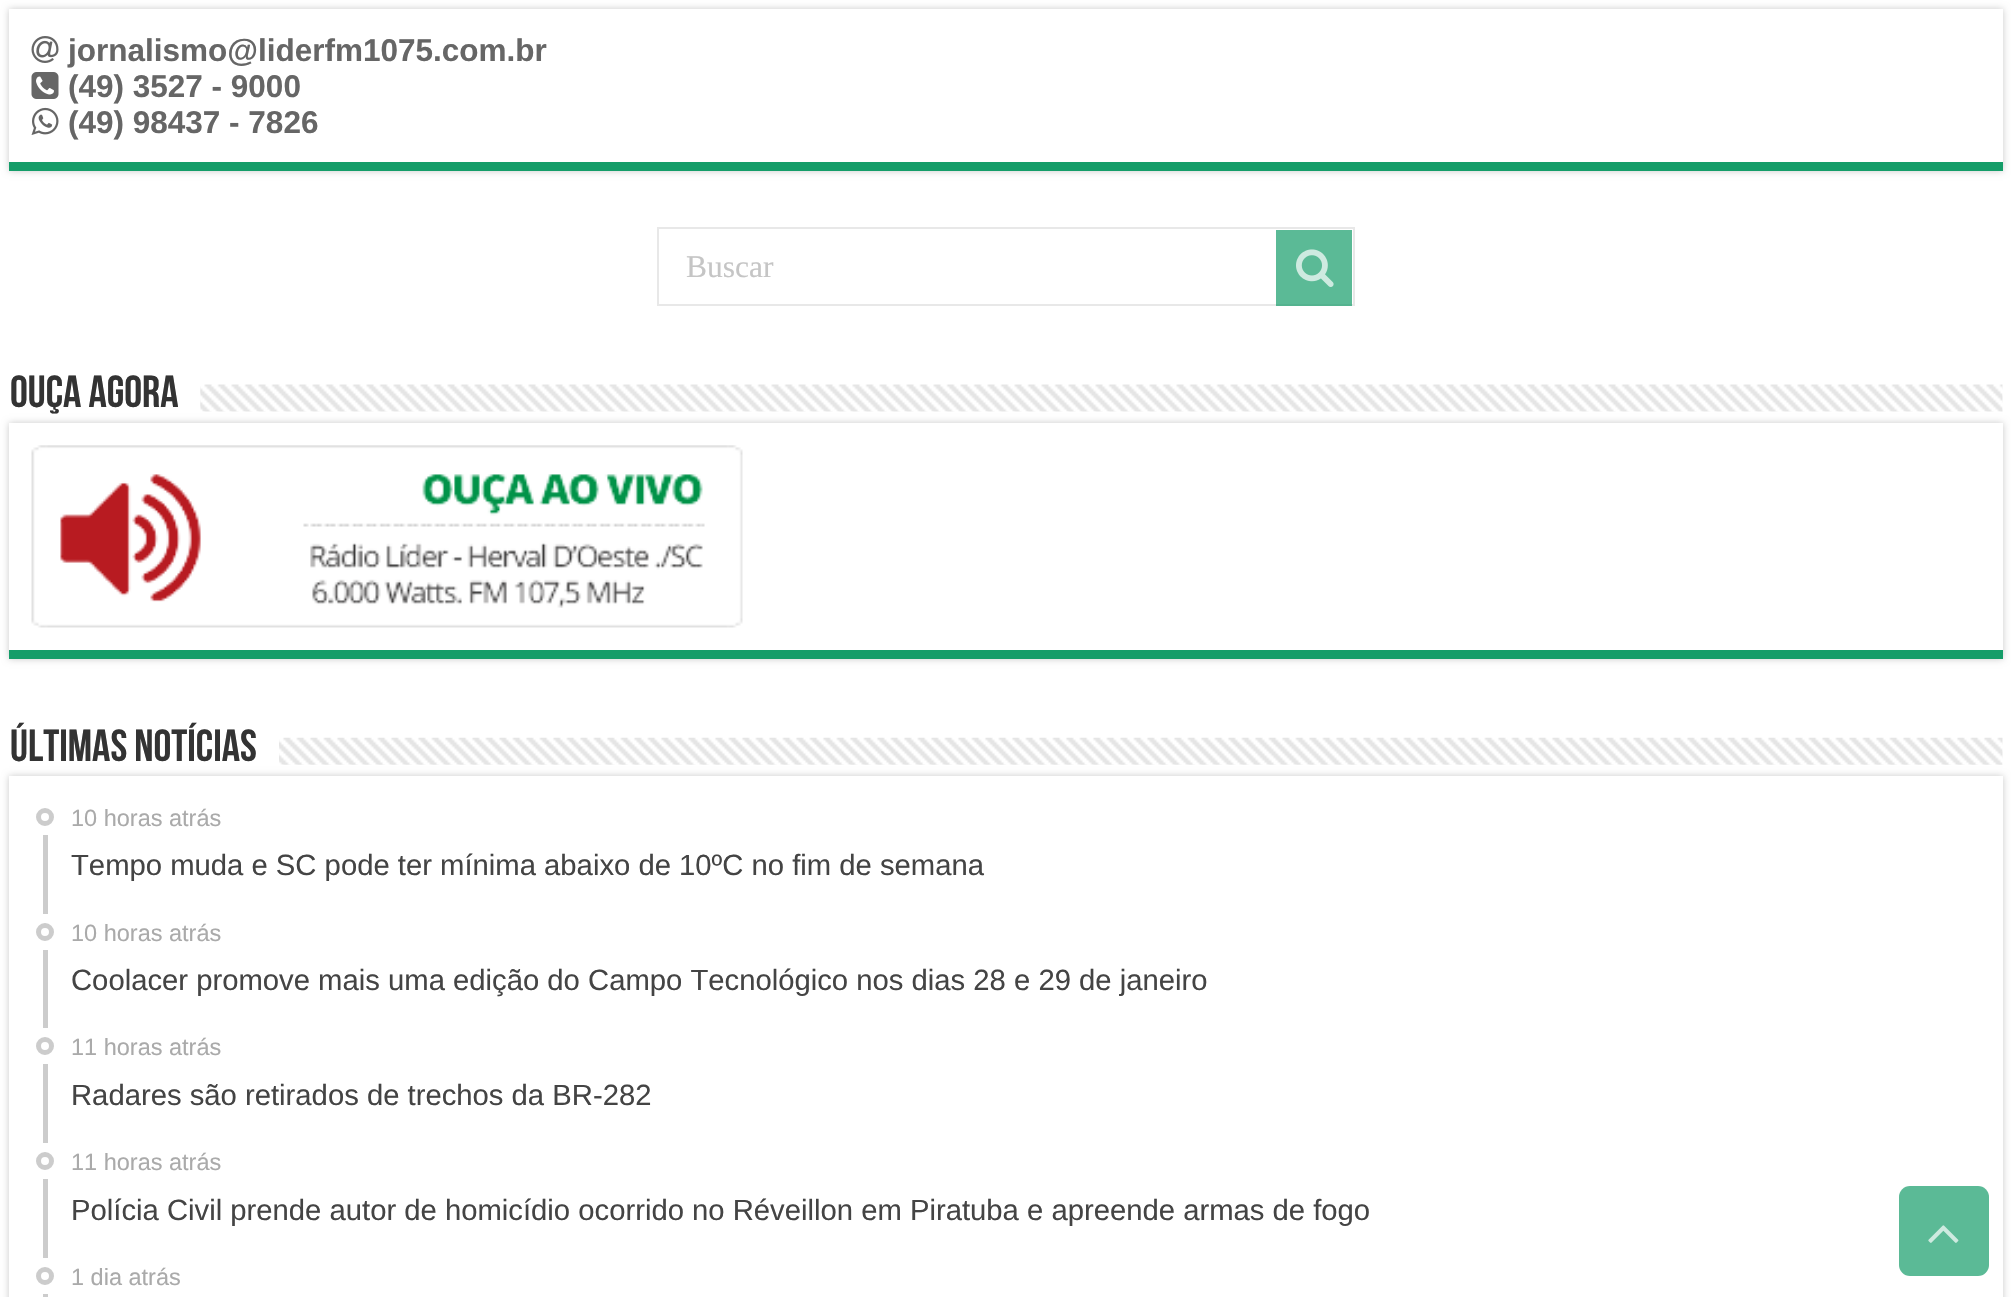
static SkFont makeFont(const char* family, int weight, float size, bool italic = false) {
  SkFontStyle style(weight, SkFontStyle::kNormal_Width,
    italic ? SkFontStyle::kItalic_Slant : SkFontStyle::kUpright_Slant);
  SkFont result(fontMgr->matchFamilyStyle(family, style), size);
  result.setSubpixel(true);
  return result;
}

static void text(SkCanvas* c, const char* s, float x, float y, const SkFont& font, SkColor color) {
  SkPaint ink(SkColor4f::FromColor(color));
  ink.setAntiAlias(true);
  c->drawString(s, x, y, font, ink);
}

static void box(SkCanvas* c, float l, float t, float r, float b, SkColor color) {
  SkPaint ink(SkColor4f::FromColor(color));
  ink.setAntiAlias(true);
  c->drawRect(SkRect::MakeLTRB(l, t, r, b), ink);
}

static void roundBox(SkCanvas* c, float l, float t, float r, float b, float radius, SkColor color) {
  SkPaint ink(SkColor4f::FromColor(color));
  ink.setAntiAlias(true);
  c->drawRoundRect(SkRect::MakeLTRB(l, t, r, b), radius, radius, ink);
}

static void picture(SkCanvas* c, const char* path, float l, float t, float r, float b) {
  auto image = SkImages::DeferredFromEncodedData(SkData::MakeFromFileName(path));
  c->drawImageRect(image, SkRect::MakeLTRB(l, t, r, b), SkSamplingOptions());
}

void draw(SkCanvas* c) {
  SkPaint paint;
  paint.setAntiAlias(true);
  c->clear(0xffffffff);
  paint.setColor(0xffcacaca);
  paint.setMaskFilter(SkMaskFilter::MakeBlur(kNormal_SkBlurStyle, 3.5f));
  c->drawRect(SkRect::MakeLTRB(9, 9, 2003, 171), paint);
  paint.setMaskFilter(nullptr);
  box(c, 9, 9, 2003, 162, 0xffffffff);
  box(c, 9, 162, 2003, 171, 0xff159d69);
  picture(c, "img_01.png", 31, 36, 59, 63);
  SkFont face1 = makeFont("Liberation Sans", 700, 31.5f);
  text(c, "jornalismo@liderfm1075.com.br", 68, 61, face1, 0xff666666);
  picture(c, "img_02.png", 31, 72, 59, 99);
  text(c, "(49) 3527 - 9000", 68, 97, face1, 0xff666666);
  picture(c, "img_03.png", 31, 107, 59, 135);
  text(c, "(49) 98437 - 7826", 68, 133, face1, 0xff666666);
  paint.setStyle(SkPaint::kStroke_Style);
  paint.setStrokeWidth(2);
  paint.setColor(0xffe8e8e8);
  c->drawRect(SkRect::MakeLTRB(658, 228, 1354, 305), paint);
  SkFont face2 = makeFont("Liberation Serif", 400, 31.5f);
  text(c, "Buscar", 686, 277, face2, 0xffc5c5c5);
  box(c, 1276, 230, 1352, 306, 0xb3159d69);
  picture(c, "img_04.png", 1296, 249, 1334, 287);
  paint.setStyle(SkPaint::kFill_Style);
  paint.setColor(0xffcacaca);
  paint.setMaskFilter(SkMaskFilter::MakeBlur(kNormal_SkBlurStyle, 3.5f));
  c->drawRect(SkRect::MakeLTRB(9, 423, 2003, 659), paint);
  paint.setMaskFilter(nullptr);
  SkFont face3 = makeFont("Bebas Neue", 700, 45);
  text(c, "Ouça Agora", 10, 407, face3, 0xff333333);
  picture(c, "img_05.png", 200, 384, 2003, 412);
  box(c, 9, 423, 2003, 650, 0xffffffff);
  box(c, 9, 650, 2003, 659, 0xff159d69);
  picture(c, "img_06.png", 31, 445, 743, 628);
  text(c, "Últimas Notícias", 10, 761, face3, 0xff333333);
  paint.setMaskFilter(SkMaskFilter::MakeBlur(kNormal_SkBlurStyle, 3.5f));
  c->drawRect(SkRect::MakeLTRB(9, 776, 2003, 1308), paint);
  paint.setMaskFilter(nullptr);
  picture(c, "img_07.png", 279, 737, 2003, 765);
  box(c, 9, 776, 2003, 1297, 0xffffffff);
  paint.setStyle(SkPaint::kStroke_Style);
  paint.setStrokeWidth(5);
  paint.setColor(0xffcccccc);
  c->drawCircle(45, 817, 6.5f, paint);
  SkFont face4 = makeFont("Liberation Sans", 400, 23.5f);
  text(c, "10 horas atrás", 71, 826, face4, 0xffaaaaaa);
  box(c, 43, 835, 48, 914, 0xffcccccc);
  SkFont face5 = makeFont("Liberation Sans", 400, 29.25f);
  text(c, "Tempo muda e SC pode ter mínima abaixo de 10ºC no fim de semana", 71, 875, face5, 0xff444444);
  c->drawCircle(45, 932, 6.5f, paint);
  text(c, "10 horas atrás", 71, 941, face4, 0xffaaaaaa);
  box(c, 43, 950, 48, 1028, 0xffcccccc);
  text(c, "Coolacer promove mais uma edição do Campo Tecnológico nos dias 28 e 29 de janeiro", 71, 990, face5, 0xff444444);
  c->drawCircle(45, 1046, 6.5f, paint);
  text(c, "11 horas atrás", 71, 1055, face4, 0xffaaaaaa);
  box(c, 43, 1064, 48, 1143, 0xffcccccc);
  text(c, "Radares são retirados de trechos da BR-282", 71, 1105, face5, 0xff444444);
  c->drawCircle(45, 1161, 6.5f, paint);
  text(c, "11 horas atrás", 71, 1170, face4, 0xffaaaaaa);
  box(c, 43, 1179, 48, 1258, 0xffcccccc);
  text(c, "Polícia Civil prende autor de homicídio ocorrido no Réveillon em Piratuba e apreende armas de fogo", 71, 1220, face5, 0xff444444);
  c->drawCircle(45, 1276, 6.5f, paint);
  text(c, "1 dia atrás", 71, 1285, face4, 0xffaaaaaa);
  box(c, 43, 1294, 48, 1297, 0xffcccccc);
  roundBox(c, 1899, 1186, 1989, 1276, 11, 0xff5bba96);
  picture(c, "img_08.png", 1928, 1225, 1959, 1243);
}
